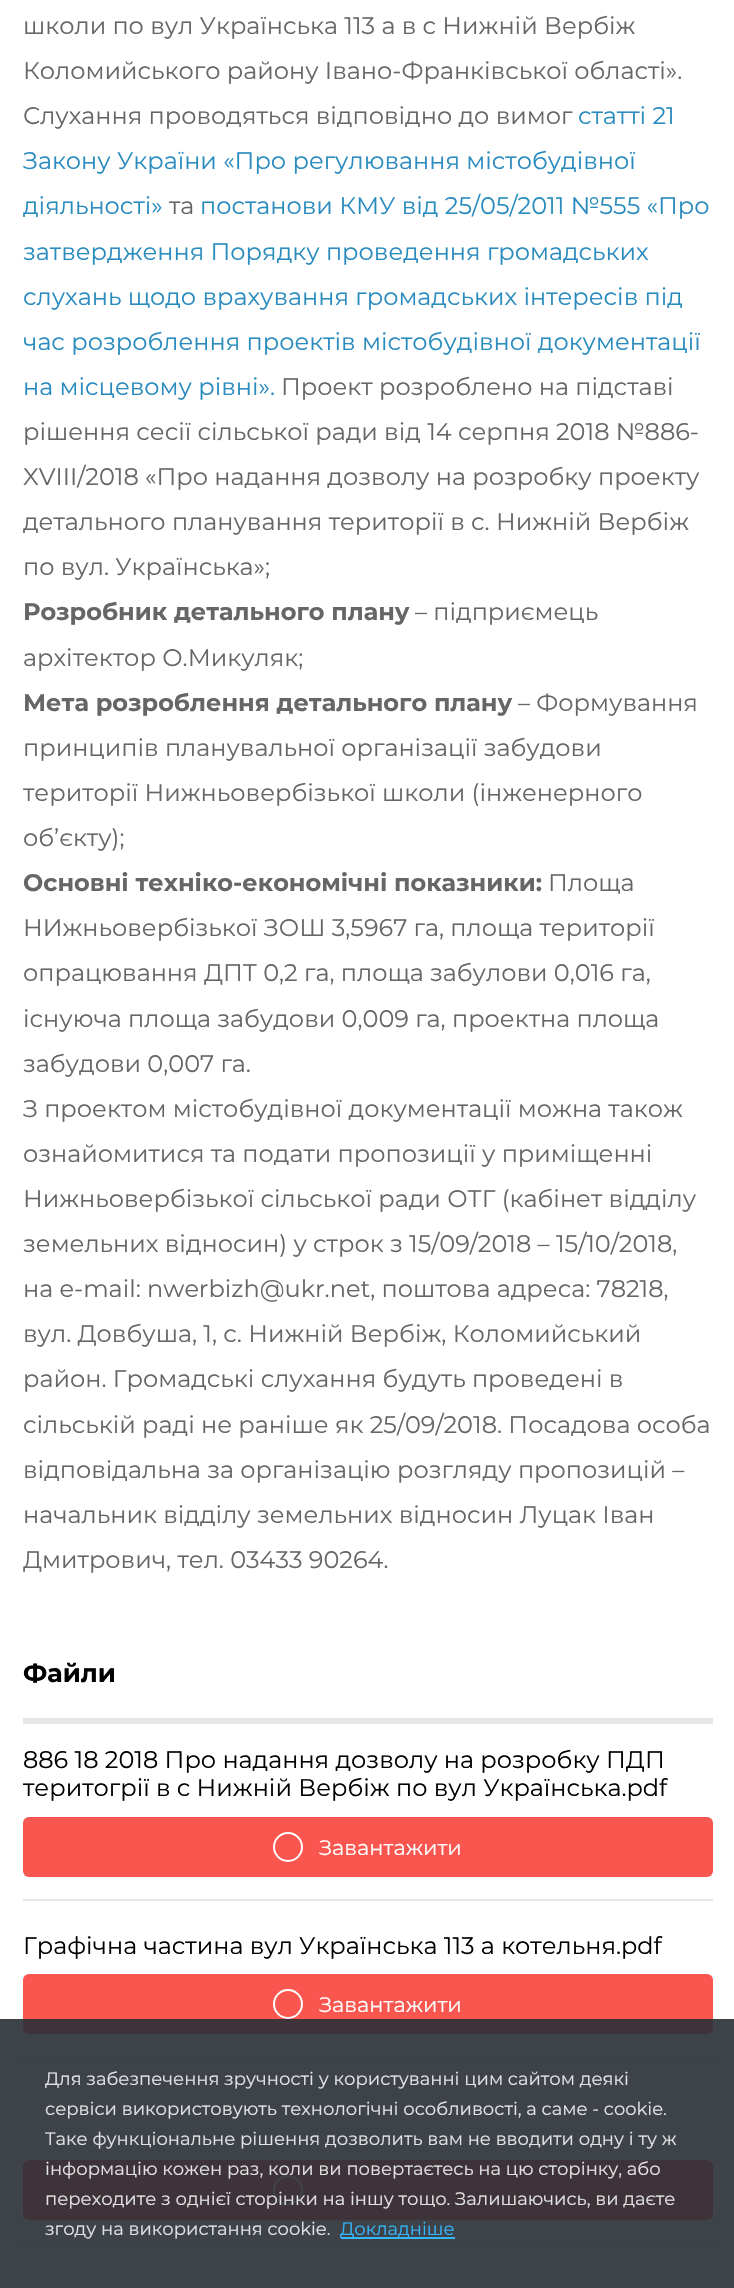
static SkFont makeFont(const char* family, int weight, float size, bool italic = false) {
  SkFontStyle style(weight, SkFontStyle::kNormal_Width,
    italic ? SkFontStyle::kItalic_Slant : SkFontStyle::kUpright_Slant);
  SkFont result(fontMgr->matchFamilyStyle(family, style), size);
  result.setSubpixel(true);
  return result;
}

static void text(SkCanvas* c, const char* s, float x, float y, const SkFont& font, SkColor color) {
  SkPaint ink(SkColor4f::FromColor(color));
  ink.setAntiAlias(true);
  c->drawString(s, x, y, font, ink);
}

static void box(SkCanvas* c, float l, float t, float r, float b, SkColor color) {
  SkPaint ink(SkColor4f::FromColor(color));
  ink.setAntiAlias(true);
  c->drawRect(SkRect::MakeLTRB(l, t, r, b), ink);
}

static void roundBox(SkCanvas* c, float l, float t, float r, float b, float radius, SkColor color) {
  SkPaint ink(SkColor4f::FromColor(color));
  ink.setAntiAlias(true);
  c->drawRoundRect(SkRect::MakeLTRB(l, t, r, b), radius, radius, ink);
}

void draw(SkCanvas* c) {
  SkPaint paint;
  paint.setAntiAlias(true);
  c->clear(0xffffffff);
  SkFont face1 = makeFont("Montserrat", 400, 24);
  text(c, "школи по вул Українська 113 а в с Нижній Вербіж", 23, 34, face1, 0xff666666);
  text(c, "Коломийського району Івано-Франківської області».", 23, 79, face1, 0xff666666);
  text(c, "Слухання проводяться відповідно до вимог", 23, 124, face1, 0xff666666);
  text(c, "статті 21", 578, 124, face1, 0xff298bbe);
  text(c, "Закону України «Про регулювання містобудівної", 23, 169, face1, 0xff298bbe);
  text(c, "діяльності»", 23, 214, face1, 0xff298bbe);
  text(c, "та", 169, 214, face1, 0xff666666);
  text(c, "постанови КМУ від 25/05/2011 №555 «Про", 200, 214, face1, 0xff298bbe);
  text(c, "затвердження Порядку проведення громадських", 23, 260, face1, 0xff298bbe);
  text(c, "слухань щодо врахування громадських інтересів під", 23, 305, face1, 0xff298bbe);
  text(c, "час розроблення проектів містобудівної документації", 23, 350, face1, 0xff298bbe);
  text(c, "на місцевому рівні».", 23, 395, face1, 0xff298bbe);
  text(c, "Проект розроблено на підставі", 281, 395, face1, 0xff666666);
  text(c, "рішення сесії сільської ради від 14 серпня 2018 №886-", 23, 440, face1, 0xff666666);
  text(c, "XVIII/2018 «Про надання дозволу на розробку проекту", 23, 485, face1, 0xff666666);
  text(c, "детального планування території в с. Нижній Вербіж", 23, 530, face1, 0xff666666);
  text(c, "по вул. Українська»;", 23, 575, face1, 0xff666666);
  SkFont face2 = makeFont("Montserrat", 700, 24);
  text(c, "Розробник детального плану", 23, 620, face2, 0xff666666);
  text(c, "– підприємець", 415, 620, face1, 0xff666666);
  text(c, "архітектор О.Микуляк;", 23, 666, face1, 0xff666666);
  text(c, "Мета розроблення детального плану", 23, 711, face2, 0xff666666);
  text(c, "– Формування", 518, 711, face1, 0xff666666);
  text(c, "принципів планувальної організації забудови", 23, 756, face1, 0xff666666);
  text(c, "території Нижньовербізької школи (інженерного", 23, 801, face1, 0xff666666);
  text(c, "об’єкту);", 23, 846, face1, 0xff666666);
  text(c, "Основні техніко-економічні показники:", 23, 891, face2, 0xff666666);
  text(c, "Площа", 548, 891, face1, 0xff666666);
  text(c, "НИжньовербізької ЗОШ 3,5967 га, площа території", 23, 936, face1, 0xff666666);
  text(c, "опрацювання ДПТ 0,2 га, площа забулови 0,016 га,", 23, 981, face1, 0xff666666);
  text(c, "існуюча площа забудови 0,009 га, проектна площа", 23, 1027, face1, 0xff666666);
  text(c, "забудови 0,007 га.", 23, 1072, face1, 0xff666666);
  text(c, "З проектом містобудівної документації можна також", 23, 1117, face1, 0xff666666);
  text(c, "ознайомитися та подати пропозиції у приміщенні", 23, 1162, face1, 0xff666666);
  text(c, "Нижньовербізької сільської ради ОТГ (кабінет відділу", 23, 1207, face1, 0xff666666);
  text(c, "земельних відносин) у строк з 15/09/2018 – 15/10/2018,", 23, 1252, face1, 0xff666666);
  text(c, "на e-mail: nwerbizh@ukr.net, поштова адреса: 78218,", 23, 1297, face1, 0xff666666);
  text(c, "вул. Довбуша, 1, с. Нижній Вербіж, Коломийський", 23, 1342, face1, 0xff666666);
  text(c, "район. Громадські слухання будуть проведені в", 23, 1387, face1, 0xff666666);
  text(c, "сільській раді не раніше як 25/09/2018. Посадова особа", 23, 1433, face1, 0xff666666);
  text(c, "відповідальна за організацію розгляду пропозицій –", 23, 1478, face1, 0xff666666);
  text(c, "начальник відділу земельних відносин Луцак Іван", 23, 1523, face1, 0xff666666);
  text(c, "Дмитрович, тел. 03433 90264.", 23, 1568, face1, 0xff666666);
  box(c, 23, 1718, 713, 1724, 0xffe6e6e6);
  SkFont face3 = makeFont("Montserrat", 700, 25.5f);
  text(c, "Файли", 23, 1682, face3, 0xff000000);
  box(c, 23, 1899, 713, 1901, 0xffe6e6e6);
  text(c, "886 18 2018 Про надання дозволу на розробку ПДП", 23, 1768, face1, 0xff000000);
  text(c, "теритогрії в с Нижній Вербіж по вул Українська.pdf", 23, 1796, face1, 0xff000000);
  roundBox(c, 23, 1817, 713, 1877, 6, 0xfff9564f);
  paint.setStyle(SkPaint::kStroke_Style);
  paint.setStrokeWidth(2);
  paint.setColor(0xffffffff);
  c->drawCircle(288, 1847, 14, paint);
  SkFont face4 = makeFont("Montserrat", 400, 21);
  text(c, "Завантажити", 319, 1855, face4, 0xffffffff);
  box(c, 23, 2057, 713, 2059, 0xffe6e6e6);
  text(c, "Графічна частина вул Українська 113 а котельня.pdf", 23, 1954, face1, 0xff000000);
  roundBox(c, 23, 1974, 713, 2034, 6, 0xfff9564f);
  c->drawCircle(288, 2004, 14, paint);
  text(c, "Завантажити", 319, 2012, face4, 0xffffffff);
  box(c, 23, 2243, 713, 2245, 0xffe6e6e6);
  roundBox(c, 23, 2160, 713, 2220, 6, 0xfff9564f);
  c->drawCircle(288, 2190, 14, paint);
  box(c, 0, 2019, 734, 2288, 0xe6292f36);
  SkFont face5 = makeFont("Montserrat", 400, 18);
  text(c, "Для забезпечення зручності у користуванні цим сайтом деякі", 45, 2085, face5, 0xffe2e3e4);
  text(c, "сервіси використовують технологічні особливості, а саме - cookie.", 45, 2115, face5, 0xffe2e3e4);
  text(c, "Таке функціональне рішення дозволить вам не вводити одну і ту ж", 45, 2145, face5, 0xffe2e3e4);
  text(c, "інформацію кожен раз, коли ви повертаєтесь на цю сторінку, або", 45, 2175, face5, 0xffe2e3e4);
  text(c, "переходите з однієї сторінки на іншу тощо. Залишаючись, ви даєте", 45, 2205, face5, 0xffe2e3e4);
  text(c, "згоду на використання cookie.", 45, 2235, face5, 0xffe2e3e4);
  box(c, 341, 2237, 455, 2239, 0xff33b8ff);
  text(c, "Докладніше", 340, 2235, face5, 0xff33b8ff);
}
